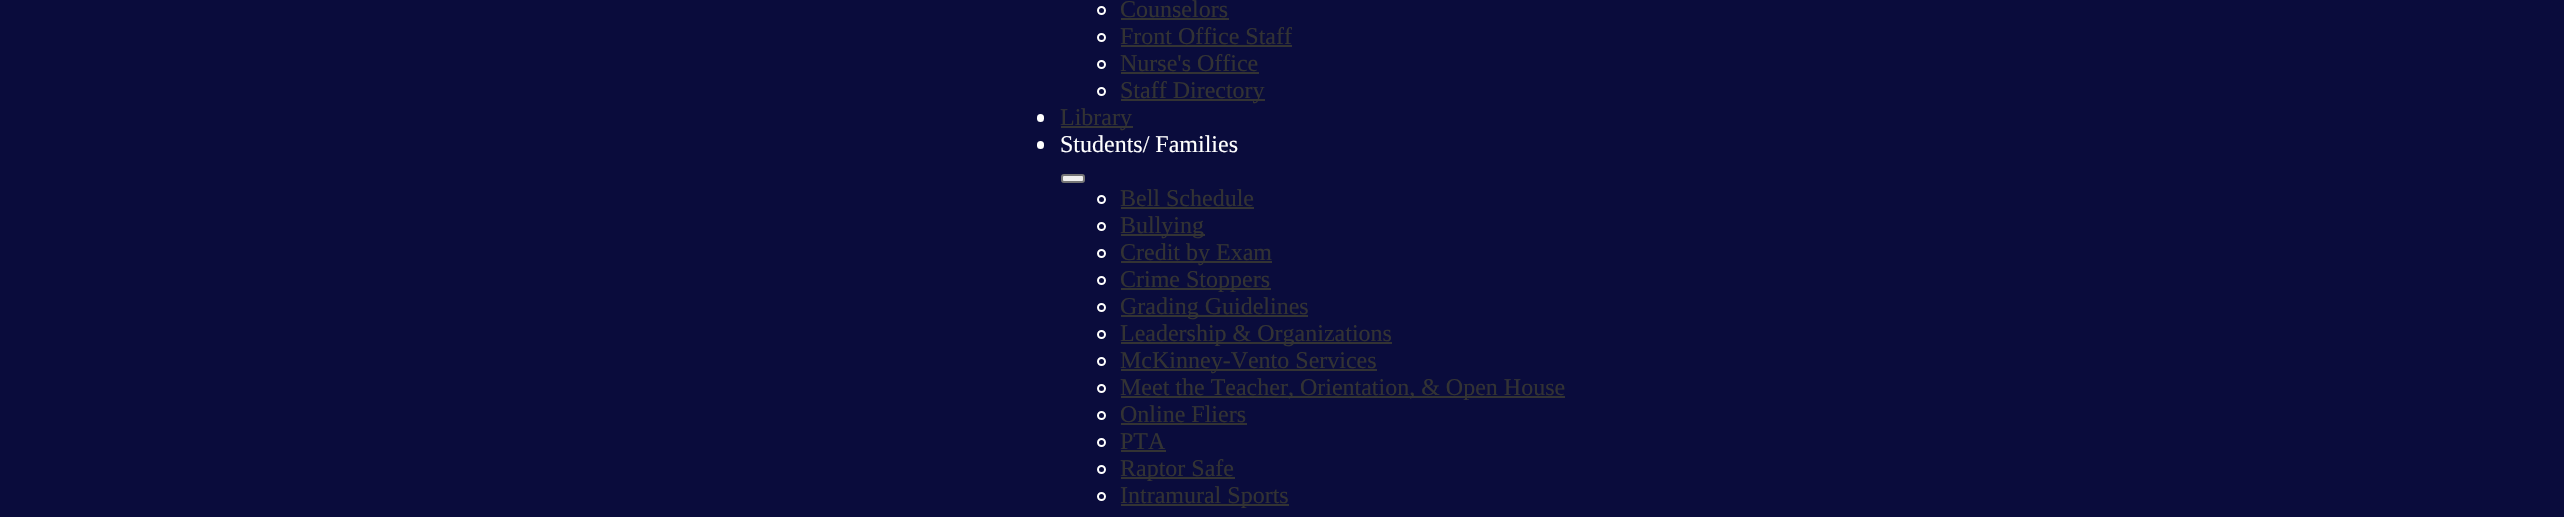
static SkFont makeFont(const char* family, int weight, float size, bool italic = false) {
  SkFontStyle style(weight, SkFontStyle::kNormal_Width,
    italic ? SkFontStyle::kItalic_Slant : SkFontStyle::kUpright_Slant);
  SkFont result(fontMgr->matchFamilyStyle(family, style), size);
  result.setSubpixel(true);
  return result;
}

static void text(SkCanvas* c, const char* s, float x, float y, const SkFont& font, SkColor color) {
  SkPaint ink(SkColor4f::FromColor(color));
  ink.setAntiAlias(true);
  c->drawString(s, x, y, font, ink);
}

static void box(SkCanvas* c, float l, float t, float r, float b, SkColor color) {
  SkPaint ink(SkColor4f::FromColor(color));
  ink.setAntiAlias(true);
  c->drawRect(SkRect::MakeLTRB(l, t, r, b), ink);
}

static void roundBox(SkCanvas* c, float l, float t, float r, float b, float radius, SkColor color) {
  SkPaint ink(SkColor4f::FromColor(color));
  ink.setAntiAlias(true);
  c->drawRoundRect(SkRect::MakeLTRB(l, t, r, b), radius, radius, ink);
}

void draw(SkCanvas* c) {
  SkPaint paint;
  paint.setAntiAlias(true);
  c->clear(0xff0a0c3c);
  paint.setStyle(SkPaint::kStroke_Style);
  paint.setStrokeWidth(2);
  paint.setColor(0xffffffff);
  c->drawCircle(1101.5f, 10.5f, 3.5f, paint);
  SkFont face1 = makeFont("Liberation Serif", 400, 24);
  text(c, "Counselors", 1120, 17, face1, 0xff333333);
  box(c, 1121, 18, 1229, 20, 0xff333333);
  c->drawCircle(1101.5f, 37.5f, 3.5f, paint);
  text(c, "Front Office Staff", 1120, 44, face1, 0xff333333);
  box(c, 1121, 45, 1292, 47, 0xff333333);
  c->drawCircle(1101.5f, 64.5f, 3.5f, paint);
  text(c, "Nurse's Office", 1120, 71, face1, 0xff333333);
  box(c, 1121, 72, 1259, 74, 0xff333333);
  c->drawCircle(1101.5f, 91.5f, 3.5f, paint);
  box(c, 1121, 99, 1265, 101, 0xff333333);
  text(c, "Staff Directory", 1120, 98, face1, 0xff333333);
  roundBox(c, 1037, 114, 1044, 122, 3.5f, 0xffffffff);
  box(c, 1061, 126, 1133, 128, 0xff333333);
  text(c, "Library", 1060, 125, face1, 0xff333333);
  roundBox(c, 1037, 141, 1044, 149, 3.5f, 0xffffffff);
  text(c, "Students/ Families", 1060, 152, face1, 0xffffffff);
  paint.setStyle(SkPaint::kFill_Style);
  paint.setColor(0xffefefef);
  c->drawRoundRect(SkRect::MakeLTRB(1062, 175, 1084, 182), 2, 2, paint);
  paint.setStyle(SkPaint::kStroke_Style);
  paint.setColor(0xff767676);
  c->drawRoundRect(SkRect::MakeLTRB(1062, 175, 1084, 182), 2, 2, paint);
  paint.setColor(0xffffffff);
  c->drawCircle(1101.5f, 199.5f, 3.5f, paint);
  text(c, "Bell Schedule", 1120, 206, face1, 0xff333333);
  box(c, 1121, 207, 1254, 209, 0xff333333);
  c->drawCircle(1101.5f, 226.5f, 3.5f, paint);
  box(c, 1121, 234, 1205, 236, 0xff333333);
  text(c, "Bullying", 1120, 233, face1, 0xff333333);
  c->drawCircle(1101.5f, 253.5f, 3.5f, paint);
  box(c, 1121, 261, 1272, 263, 0xff333333);
  text(c, "Credit by Exam", 1120, 260, face1, 0xff333333);
  c->drawCircle(1101.5f, 280.5f, 3.5f, paint);
  box(c, 1121, 288, 1271, 290, 0xff333333);
  text(c, "Crime Stoppers", 1120, 287, face1, 0xff333333);
  c->drawCircle(1101.5f, 307.5f, 3.5f, paint);
  box(c, 1121, 315, 1308, 317, 0xff333333);
  text(c, "Grading Guidelines", 1120, 314, face1, 0xff333333);
  c->drawCircle(1101.5f, 334.5f, 3.5f, paint);
  box(c, 1121, 342, 1392, 344, 0xff333333);
  text(c, "Leadership & Organizations", 1120, 341, face1, 0xff333333);
  c->drawCircle(1101.5f, 361.5f, 3.5f, paint);
  box(c, 1121, 369, 1377, 371, 0xff333333);
  text(c, "McKinney-Vento Services", 1120, 368, face1, 0xff333333);
  c->drawCircle(1101.5f, 388.5f, 3.5f, paint);
  box(c, 1121, 396, 1565, 398, 0xff333333);
  text(c, "Meet the Teacher, Orientation, & Open House", 1120, 395, face1, 0xff333333);
  c->drawCircle(1101.5f, 415.5f, 3.5f, paint);
  text(c, "Online Fliers", 1120, 422, face1, 0xff333333);
  box(c, 1121, 423, 1247, 425, 0xff333333);
  c->drawCircle(1101.5f, 442.5f, 3.5f, paint);
  text(c, "PTA", 1120, 449, face1, 0xff333333);
  box(c, 1121, 450, 1166, 452, 0xff333333);
  c->drawCircle(1101.5f, 469.5f, 3.5f, paint);
  box(c, 1121, 477, 1235, 479, 0xff333333);
  text(c, "Raptor Safe", 1120, 476, face1, 0xff333333);
  c->drawCircle(1101.5f, 496.5f, 3.5f, paint);
  box(c, 1121, 504, 1289, 506, 0xff333333);
  text(c, "Intramural Sports", 1120, 503, face1, 0xff333333);
}
